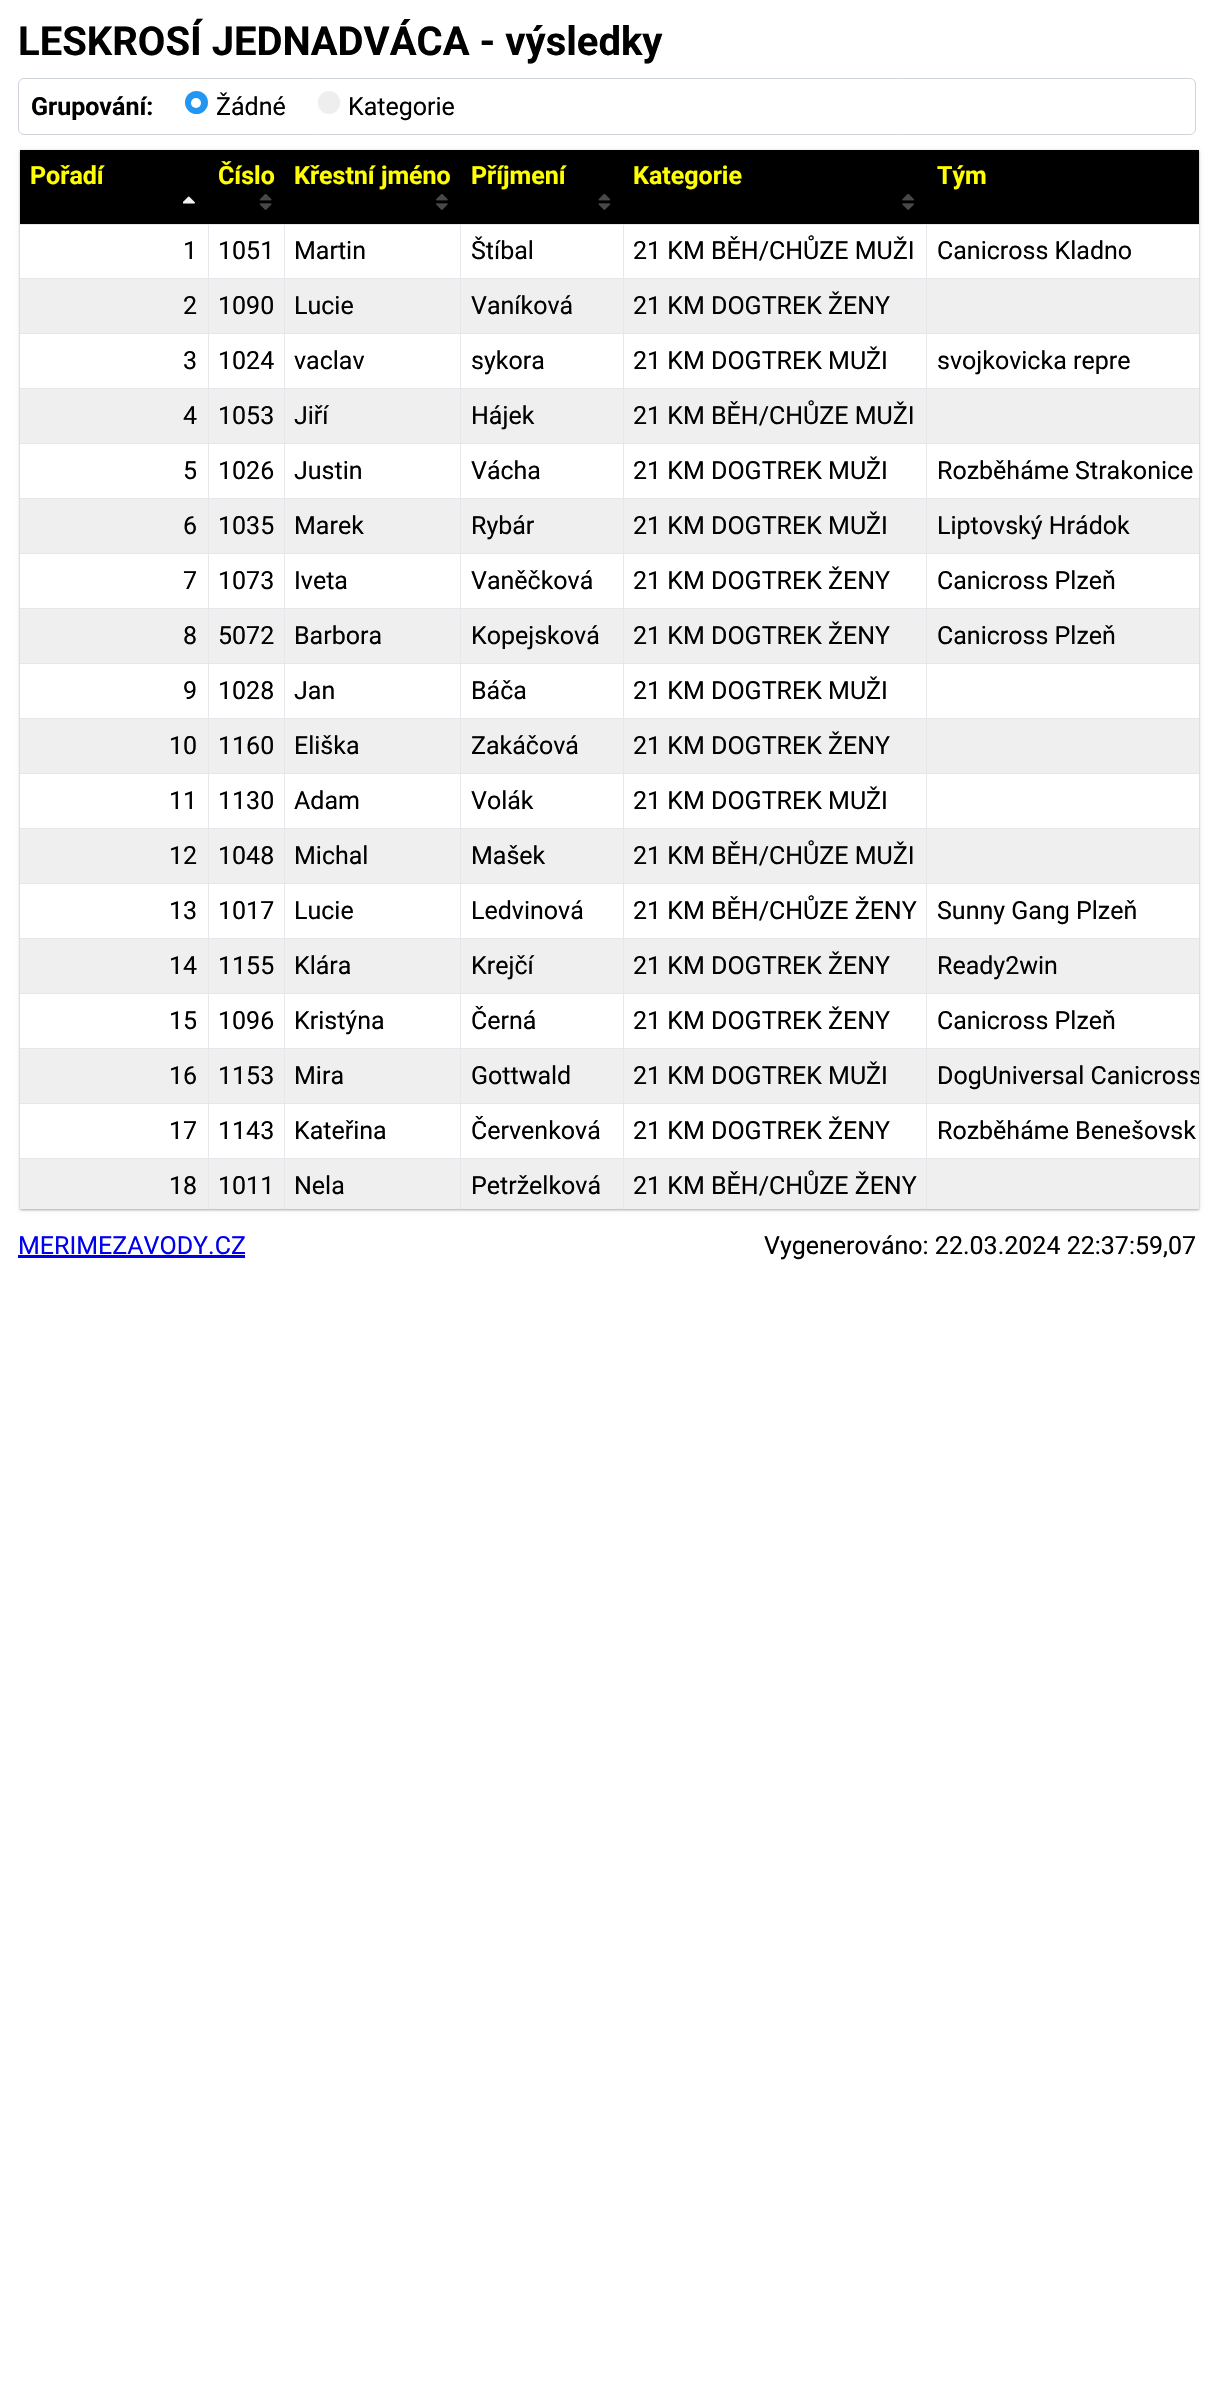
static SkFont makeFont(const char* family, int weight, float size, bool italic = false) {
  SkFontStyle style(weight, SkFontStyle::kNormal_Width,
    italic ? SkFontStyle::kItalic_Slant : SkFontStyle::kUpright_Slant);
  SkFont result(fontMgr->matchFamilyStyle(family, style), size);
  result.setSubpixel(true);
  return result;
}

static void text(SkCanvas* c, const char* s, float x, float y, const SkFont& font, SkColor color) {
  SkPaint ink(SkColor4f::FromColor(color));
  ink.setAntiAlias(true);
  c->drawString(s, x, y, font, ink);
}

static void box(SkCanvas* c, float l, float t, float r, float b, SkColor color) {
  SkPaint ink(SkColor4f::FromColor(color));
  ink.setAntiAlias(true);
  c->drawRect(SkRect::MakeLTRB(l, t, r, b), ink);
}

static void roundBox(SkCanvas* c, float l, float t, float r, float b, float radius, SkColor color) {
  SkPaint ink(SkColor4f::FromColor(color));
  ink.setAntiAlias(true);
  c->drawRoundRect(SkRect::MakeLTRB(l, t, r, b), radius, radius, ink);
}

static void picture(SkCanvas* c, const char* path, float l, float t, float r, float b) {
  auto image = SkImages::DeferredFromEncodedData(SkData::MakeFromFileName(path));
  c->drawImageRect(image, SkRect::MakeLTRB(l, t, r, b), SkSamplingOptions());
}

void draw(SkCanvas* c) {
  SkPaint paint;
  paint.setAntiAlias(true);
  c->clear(0xffffffff);
  SkFont face1 = makeFont("Roboto", 700, 40);
  text(c, "LESKROSÍ JEDNADVÁCA - výsledky", 18, 55, face1, 0xff000000);
  paint.setStyle(SkPaint::kStroke_Style);
  paint.setStrokeWidth(1);
  paint.setColor(0xffced4da);
  c->drawRoundRect(SkRect::MakeLTRB(18.5f, 78.5f, 1195.5f, 134.5f), 5.5f, 5.5f, paint);
  SkFont face2 = makeFont("Roboto", 700, 25);
  text(c, "Grupování:", 31, 115, face2, 0xff000000);
  paint.setStyle(SkPaint::kFill_Style);
  paint.setColor(0xff2196f3);
  c->drawCircle(196.5f, 102.5f, 11.5f, paint);
  paint.setColor(0xffffffff);
  c->drawCircle(196, 103, 5, paint);
  SkFont face3 = makeFont("Roboto", 400, 25);
  text(c, "Žádné", 216, 115, face3, 0xff000000);
  roundBox(c, 318, 91, 340, 114, 11, 0xffeeeeee);
  text(c, "Kategorie", 348, 115, face3, 0xff000000);
  paint.setColor(0x42000000);
  paint.setMaskFilter(SkMaskFilter::MakeBlur(kNormal_SkBlurStyle, 1));
  c->drawRect(SkRect::MakeLTRB(20, 151, 1199, 1210), paint);
  paint.setMaskFilter(nullptr);
  paint.setColor(0x1a000000);
  paint.setMaskFilter(SkMaskFilter::MakeBlur(kNormal_SkBlurStyle, 2));
  c->drawRect(SkRect::MakeLTRB(20, 151, 1199, 1210), paint);
  paint.setMaskFilter(nullptr);
  paint.setColor(0xffe5e7eb);
  c->drawPath(SkPathBuilder().moveTo(20, 224).lineTo(20, 225).lineTo(208, 225).lineTo(208, 151).lineTo(208, 224).close().detach(), paint);
  box(c, 20, 225, 1199, 1158, 0xffffffff);
  box(c, 926, 278, 1199, 279, 0xffe5e7eb);
  box(c, 926, 333, 1199, 334, 0xffe5e7eb);
  box(c, 926, 388, 1199, 389, 0xffe5e7eb);
  box(c, 926, 443, 1199, 444, 0xffe5e7eb);
  box(c, 926, 498, 1199, 499, 0xffe5e7eb);
  box(c, 926, 553, 1199, 554, 0xffe5e7eb);
  box(c, 926, 608, 1199, 609, 0xffe5e7eb);
  box(c, 926, 663, 1199, 664, 0xffe5e7eb);
  box(c, 926, 718, 1199, 719, 0xffe5e7eb);
  box(c, 926, 773, 1199, 774, 0xffe5e7eb);
  box(c, 926, 828, 1199, 829, 0xffe5e7eb);
  box(c, 926, 883, 1199, 884, 0xffe5e7eb);
  box(c, 926, 938, 1199, 939, 0xffe5e7eb);
  box(c, 926, 993, 1199, 994, 0xffe5e7eb);
  box(c, 926, 1048, 1199, 1049, 0xffe5e7eb);
  box(c, 926, 1103, 1199, 1104, 0xffe5e7eb);
  box(c, 926, 1158, 1199, 1159, 0xffe5e7eb);
  box(c, 926, 1158, 927, 1209, 0xffe5e7eb);
  box(c, 623, 1158, 928, 1159, 0xffe5e7eb);
  box(c, 926, 1103, 927, 1159, 0xffe5e7eb);
  box(c, 623, 1103, 928, 1104, 0xffe5e7eb);
  box(c, 926, 1048, 927, 1104, 0xffe5e7eb);
  box(c, 623, 1048, 928, 1049, 0xffe5e7eb);
  box(c, 926, 993, 927, 1049, 0xffe5e7eb);
  box(c, 623, 993, 928, 994, 0xffe5e7eb);
  box(c, 926, 938, 927, 994, 0xffe5e7eb);
  box(c, 623, 938, 928, 939, 0xffe5e7eb);
  box(c, 926, 883, 927, 939, 0xffe5e7eb);
  box(c, 623, 883, 928, 884, 0xffe5e7eb);
  box(c, 926, 828, 927, 884, 0xffe5e7eb);
  box(c, 623, 828, 928, 829, 0xffe5e7eb);
  box(c, 926, 773, 927, 829, 0xffe5e7eb);
  box(c, 623, 773, 928, 774, 0xffe5e7eb);
  box(c, 926, 718, 927, 774, 0xffe5e7eb);
  box(c, 623, 718, 928, 719, 0xffe5e7eb);
  box(c, 926, 663, 927, 719, 0xffe5e7eb);
  box(c, 623, 663, 928, 664, 0xffe5e7eb);
  box(c, 926, 608, 927, 664, 0xffe5e7eb);
  box(c, 623, 608, 928, 609, 0xffe5e7eb);
  box(c, 926, 553, 927, 609, 0xffe5e7eb);
  box(c, 623, 553, 928, 554, 0xffe5e7eb);
  box(c, 926, 498, 927, 554, 0xffe5e7eb);
  box(c, 623, 498, 928, 499, 0xffe5e7eb);
  box(c, 926, 443, 927, 499, 0xffe5e7eb);
  box(c, 623, 443, 928, 444, 0xffe5e7eb);
  box(c, 926, 388, 927, 444, 0xffe5e7eb);
  box(c, 623, 388, 928, 389, 0xffe5e7eb);
  box(c, 926, 333, 927, 389, 0xffe5e7eb);
  box(c, 623, 333, 928, 334, 0xffe5e7eb);
  box(c, 926, 278, 927, 334, 0xffe5e7eb);
  box(c, 623, 278, 928, 279, 0xffe5e7eb);
  box(c, 623, 1158, 624, 1209, 0xffe5e7eb);
  box(c, 460, 1158, 624, 1159, 0xffe5e7eb);
  box(c, 623, 1103, 624, 1159, 0xffe5e7eb);
  box(c, 460, 1103, 624, 1104, 0xffe5e7eb);
  box(c, 623, 1048, 624, 1104, 0xffe5e7eb);
  box(c, 460, 1048, 624, 1049, 0xffe5e7eb);
  box(c, 623, 993, 624, 1049, 0xffe5e7eb);
  box(c, 460, 993, 624, 994, 0xffe5e7eb);
  box(c, 623, 938, 624, 994, 0xffe5e7eb);
  box(c, 460, 938, 624, 939, 0xffe5e7eb);
  box(c, 623, 883, 624, 939, 0xffe5e7eb);
  box(c, 460, 883, 624, 884, 0xffe5e7eb);
  box(c, 623, 828, 624, 884, 0xffe5e7eb);
  box(c, 460, 828, 624, 829, 0xffe5e7eb);
  box(c, 623, 773, 624, 829, 0xffe5e7eb);
  box(c, 460, 773, 624, 774, 0xffe5e7eb);
  box(c, 623, 718, 624, 774, 0xffe5e7eb);
  box(c, 460, 718, 624, 719, 0xffe5e7eb);
  box(c, 623, 663, 624, 719, 0xffe5e7eb);
  box(c, 460, 663, 624, 664, 0xffe5e7eb);
  box(c, 623, 608, 624, 664, 0xffe5e7eb);
  box(c, 460, 608, 624, 609, 0xffe5e7eb);
  box(c, 623, 553, 624, 609, 0xffe5e7eb);
  box(c, 460, 553, 624, 554, 0xffe5e7eb);
  box(c, 623, 498, 624, 554, 0xffe5e7eb);
  box(c, 460, 498, 624, 499, 0xffe5e7eb);
  box(c, 623, 443, 624, 499, 0xffe5e7eb);
  box(c, 460, 443, 624, 444, 0xffe5e7eb);
  box(c, 623, 388, 624, 444, 0xffe5e7eb);
  box(c, 460, 388, 624, 389, 0xffe5e7eb);
  box(c, 623, 333, 624, 389, 0xffe5e7eb);
  box(c, 460, 333, 624, 334, 0xffe5e7eb);
  box(c, 623, 278, 624, 334, 0xffe5e7eb);
  box(c, 460, 278, 624, 279, 0xffe5e7eb);
  box(c, 460, 1158, 461, 1209, 0xffe5e7eb);
  box(c, 284, 1158, 461, 1159, 0xffe5e7eb);
  box(c, 460, 1103, 461, 1159, 0xffe5e7eb);
  box(c, 284, 1103, 461, 1104, 0xffe5e7eb);
  box(c, 460, 1048, 461, 1104, 0xffe5e7eb);
  box(c, 284, 1048, 461, 1049, 0xffe5e7eb);
  box(c, 460, 993, 461, 1049, 0xffe5e7eb);
  box(c, 284, 993, 461, 994, 0xffe5e7eb);
  box(c, 460, 938, 461, 994, 0xffe5e7eb);
  box(c, 284, 938, 461, 939, 0xffe5e7eb);
  box(c, 460, 883, 461, 939, 0xffe5e7eb);
  box(c, 284, 883, 461, 884, 0xffe5e7eb);
  box(c, 460, 828, 461, 884, 0xffe5e7eb);
  box(c, 284, 828, 461, 829, 0xffe5e7eb);
  box(c, 460, 773, 461, 829, 0xffe5e7eb);
  box(c, 284, 773, 461, 774, 0xffe5e7eb);
  box(c, 460, 718, 461, 774, 0xffe5e7eb);
  box(c, 284, 718, 461, 719, 0xffe5e7eb);
  box(c, 460, 663, 461, 719, 0xffe5e7eb);
  box(c, 284, 663, 461, 664, 0xffe5e7eb);
  box(c, 460, 608, 461, 664, 0xffe5e7eb);
  box(c, 284, 608, 461, 609, 0xffe5e7eb);
  box(c, 460, 553, 461, 609, 0xffe5e7eb);
  box(c, 284, 553, 461, 554, 0xffe5e7eb);
  box(c, 460, 498, 461, 554, 0xffe5e7eb);
  box(c, 284, 498, 461, 499, 0xffe5e7eb);
  box(c, 460, 443, 461, 499, 0xffe5e7eb);
  box(c, 284, 443, 461, 444, 0xffe5e7eb);
  box(c, 460, 388, 461, 444, 0xffe5e7eb);
  box(c, 284, 388, 461, 389, 0xffe5e7eb);
  box(c, 460, 333, 461, 389, 0xffe5e7eb);
  box(c, 284, 333, 461, 334, 0xffe5e7eb);
  box(c, 460, 278, 461, 334, 0xffe5e7eb);
  box(c, 284, 278, 461, 279, 0xffe5e7eb);
  box(c, 284, 1158, 285, 1209, 0xffe5e7eb);
  box(c, 208, 1158, 285, 1159, 0xffe5e7eb);
  box(c, 284, 1103, 285, 1159, 0xffe5e7eb);
  box(c, 208, 1103, 285, 1104, 0xffe5e7eb);
  box(c, 284, 1048, 285, 1104, 0xffe5e7eb);
  box(c, 208, 1048, 285, 1049, 0xffe5e7eb);
  box(c, 284, 993, 285, 1049, 0xffe5e7eb);
  box(c, 208, 993, 285, 994, 0xffe5e7eb);
  box(c, 284, 938, 285, 994, 0xffe5e7eb);
  box(c, 208, 938, 285, 939, 0xffe5e7eb);
  box(c, 284, 883, 285, 939, 0xffe5e7eb);
  box(c, 208, 883, 285, 884, 0xffe5e7eb);
  box(c, 284, 828, 285, 884, 0xffe5e7eb);
  box(c, 208, 828, 285, 829, 0xffe5e7eb);
  box(c, 284, 773, 285, 829, 0xffe5e7eb);
  box(c, 208, 773, 285, 774, 0xffe5e7eb);
  box(c, 284, 718, 285, 774, 0xffe5e7eb);
  box(c, 208, 718, 285, 719, 0xffe5e7eb);
  box(c, 284, 663, 285, 719, 0xffe5e7eb);
  box(c, 208, 663, 285, 664, 0xffe5e7eb);
  box(c, 284, 608, 285, 664, 0xffe5e7eb);
  box(c, 208, 608, 285, 609, 0xffe5e7eb);
  box(c, 284, 553, 285, 609, 0xffe5e7eb);
  box(c, 208, 553, 285, 554, 0xffe5e7eb);
  box(c, 284, 498, 285, 554, 0xffe5e7eb);
  box(c, 208, 498, 285, 499, 0xffe5e7eb);
  box(c, 284, 443, 285, 499, 0xffe5e7eb);
  box(c, 208, 443, 285, 444, 0xffe5e7eb);
  box(c, 284, 388, 285, 444, 0xffe5e7eb);
  box(c, 208, 388, 285, 389, 0xffe5e7eb);
  box(c, 284, 333, 285, 389, 0xffe5e7eb);
  box(c, 208, 333, 285, 334, 0xffe5e7eb);
  box(c, 284, 278, 285, 334, 0xffe5e7eb);
  box(c, 208, 278, 285, 279, 0xffe5e7eb);
  box(c, 208, 1158, 209, 1209, 0xffe5e7eb);
  box(c, 20, 1158, 209, 1159, 0xffe5e7eb);
  box(c, 208, 1103, 209, 1159, 0xffe5e7eb);
  box(c, 20, 1103, 209, 1104, 0xffe5e7eb);
  box(c, 208, 1048, 209, 1104, 0xffe5e7eb);
  box(c, 20, 1048, 209, 1049, 0xffe5e7eb);
  box(c, 208, 993, 209, 1049, 0xffe5e7eb);
  box(c, 20, 993, 209, 994, 0xffe5e7eb);
  box(c, 208, 938, 209, 994, 0xffe5e7eb);
  box(c, 20, 938, 209, 939, 0xffe5e7eb);
  box(c, 208, 883, 209, 939, 0xffe5e7eb);
  box(c, 20, 883, 209, 884, 0xffe5e7eb);
  box(c, 208, 828, 209, 884, 0xffe5e7eb);
  box(c, 20, 828, 209, 829, 0xffe5e7eb);
  box(c, 208, 773, 209, 829, 0xffe5e7eb);
  box(c, 20, 773, 209, 774, 0xffe5e7eb);
  box(c, 208, 718, 209, 774, 0xffe5e7eb);
  box(c, 20, 718, 209, 719, 0xffe5e7eb);
  box(c, 208, 663, 209, 719, 0xffe5e7eb);
  box(c, 20, 663, 209, 664, 0xffe5e7eb);
  box(c, 208, 608, 209, 664, 0xffe5e7eb);
  box(c, 20, 608, 209, 609, 0xffe5e7eb);
  box(c, 208, 553, 209, 609, 0xffe5e7eb);
  box(c, 20, 553, 209, 554, 0xffe5e7eb);
  box(c, 208, 498, 209, 554, 0xffe5e7eb);
  box(c, 20, 498, 209, 499, 0xffe5e7eb);
  box(c, 208, 443, 209, 499, 0xffe5e7eb);
  box(c, 20, 443, 209, 444, 0xffe5e7eb);
  box(c, 208, 388, 209, 444, 0xffe5e7eb);
  box(c, 20, 388, 209, 389, 0xffe5e7eb);
  box(c, 208, 333, 209, 389, 0xffe5e7eb);
  box(c, 20, 333, 209, 334, 0xffe5e7eb);
  box(c, 208, 278, 209, 334, 0xffe5e7eb);
  box(c, 20, 278, 209, 279, 0xffe5e7eb);
  box(c, 208, 223, 209, 279, 0xffe5e7eb);
  box(c, 284, 223, 285, 279, 0xffe5e7eb);
  box(c, 20, 150, 460, 224, 0xff000000);
  text(c, "Pořadí", 30, 184, face2, 0xffffff00);
  picture(c, "img_01.png", 183, 196, 195, 204);
  c->drawPath(SkPathBuilder().moveTo(208, 224).lineTo(208, 225).lineTo(284, 225).lineTo(284, 151).lineTo(284, 224).close().detach(), paint);
  text(c, "Číslo", 218, 184, face2, 0xffffff00);
  picture(c, "img_02.png", 259, 194, 272, 210);
  box(c, 284, 224, 460, 225, 0xffe5e7eb);
  text(c, "Křestní jméno", 294, 184, face2, 0xffffff00);
  picture(c, "img_03.png", 436, 194, 448, 210);
  box(c, 460, 223, 461, 279, 0xffe5e7eb);
  c->drawPath(SkPathBuilder().moveTo(460, 224).lineTo(460, 225).lineTo(623, 225).lineTo(623, 151).lineTo(622, 151).lineTo(622, 224).close().detach(), paint);
  box(c, 623, 223, 624, 279, 0xffe5e7eb);
  box(c, 926, 223, 927, 279, 0xffe5e7eb);
  box(c, 460, 150, 1199, 224, 0xff000000);
  text(c, "Příjmení", 471, 184, face2, 0xffffff00);
  picture(c, "img_04.png", 598, 194, 611, 210);
  box(c, 623, 224, 926, 225, 0xffe5e7eb);
  text(c, "Kategorie", 633, 184, face2, 0xffffff00);
  picture(c, "img_05.png", 902, 194, 914, 210);
  c->save();
  c->clipRect(SkRect::MakeLTRB(20, 150, 1199, 1209));
  c->drawPath(SkPathBuilder().moveTo(926, 151).lineTo(926, 225).lineTo(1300, 225).lineTo(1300, 224).lineTo(926, 224).close().detach(), paint);
  c->restore();
  text(c, "Tým", 937, 184, face2, 0xffffff00);
  text(c, "1", 183, 259, face3, 0xff000000);
  text(c, "1051", 218, 259, face3, 0xff000000);
  text(c, "Martin", 294, 259, face3, 0xff000000);
  text(c, "Štíbal", 471, 259, face3, 0xff000000);
  text(c, "21 KM BĚH/CHŮZE MUŽI", 633, 259, face3, 0xff000000);
  text(c, "Canicross Kladno", 937, 259, face3, 0xff000000);
  box(c, 20, 279, 208, 333, 0xffefefef);
  text(c, "2", 183, 314, face3, 0xff000000);
  box(c, 209, 279, 284, 333, 0xffefefef);
  text(c, "1090", 218, 314, face3, 0xff000000);
  box(c, 285, 279, 460, 333, 0xffefefef);
  text(c, "Lucie", 294, 314, face3, 0xff000000);
  box(c, 461, 279, 623, 333, 0xffefefef);
  text(c, "Vaníková", 471, 314, face3, 0xff000000);
  box(c, 624, 279, 926, 333, 0xffefefef);
  text(c, "21 KM DOGTREK ŽENY", 633, 314, face3, 0xff000000);
  box(c, 927, 279, 1199, 333, 0xffefefef);
  text(c, "3", 183, 369, face3, 0xff000000);
  text(c, "1024", 218, 369, face3, 0xff000000);
  text(c, "vaclav", 294, 369, face3, 0xff000000);
  text(c, "sykora", 471, 369, face3, 0xff000000);
  text(c, "21 KM DOGTREK MUŽI", 633, 369, face3, 0xff000000);
  text(c, "svojkovicka repre", 937, 369, face3, 0xff000000);
  box(c, 20, 389, 208, 443, 0xffefefef);
  text(c, "4", 183, 424, face3, 0xff000000);
  box(c, 209, 389, 284, 443, 0xffefefef);
  text(c, "1053", 218, 424, face3, 0xff000000);
  box(c, 285, 389, 460, 443, 0xffefefef);
  text(c, "Jiří", 294, 424, face3, 0xff000000);
  box(c, 461, 389, 623, 443, 0xffefefef);
  text(c, "Hájek", 471, 424, face3, 0xff000000);
  box(c, 624, 389, 926, 443, 0xffefefef);
  text(c, "21 KM BĚH/CHŮZE MUŽI", 633, 424, face3, 0xff000000);
  box(c, 927, 389, 1199, 443, 0xffefefef);
  text(c, "5", 183, 479, face3, 0xff000000);
  text(c, "1026", 218, 479, face3, 0xff000000);
  text(c, "Justin", 294, 479, face3, 0xff000000);
  text(c, "Vácha", 471, 479, face3, 0xff000000);
  text(c, "21 KM DOGTREK MUŽI", 633, 479, face3, 0xff000000);
  text(c, "Rozběháme Strakonice", 937, 479, face3, 0xff000000);
  box(c, 20, 499, 208, 553, 0xffefefef);
  text(c, "6", 183, 534, face3, 0xff000000);
  box(c, 209, 499, 284, 553, 0xffefefef);
  text(c, "1035", 218, 534, face3, 0xff000000);
  box(c, 285, 499, 460, 553, 0xffefefef);
  text(c, "Marek", 294, 534, face3, 0xff000000);
  box(c, 461, 499, 623, 553, 0xffefefef);
  text(c, "Rybár", 471, 534, face3, 0xff000000);
  box(c, 624, 499, 926, 553, 0xffefefef);
  text(c, "21 KM DOGTREK MUŽI", 633, 534, face3, 0xff000000);
  box(c, 927, 499, 1199, 553, 0xffefefef);
  text(c, "Liptovský Hrádok", 937, 534, face3, 0xff000000);
  text(c, "7", 183, 589, face3, 0xff000000);
  text(c, "1073", 218, 589, face3, 0xff000000);
  text(c, "Iveta", 294, 589, face3, 0xff000000);
  text(c, "Vaněčková", 471, 589, face3, 0xff000000);
  text(c, "21 KM DOGTREK ŽENY", 633, 589, face3, 0xff000000);
  text(c, "Canicross Plzeň", 937, 589, face3, 0xff000000);
  box(c, 20, 609, 208, 663, 0xffefefef);
  text(c, "8", 183, 644, face3, 0xff000000);
  box(c, 209, 609, 284, 663, 0xffefefef);
  text(c, "5072", 218, 644, face3, 0xff000000);
  box(c, 285, 609, 460, 663, 0xffefefef);
  text(c, "Barbora", 294, 644, face3, 0xff000000);
  box(c, 461, 609, 623, 663, 0xffefefef);
  text(c, "Kopejsková", 471, 644, face3, 0xff000000);
  box(c, 624, 609, 926, 663, 0xffefefef);
  text(c, "21 KM DOGTREK ŽENY", 633, 644, face3, 0xff000000);
  box(c, 927, 609, 1199, 663, 0xffefefef);
  text(c, "Canicross Plzeň", 937, 644, face3, 0xff000000);
  text(c, "9", 183, 699, face3, 0xff000000);
  text(c, "1028", 218, 699, face3, 0xff000000);
  text(c, "Jan", 294, 699, face3, 0xff000000);
  text(c, "Báča", 471, 699, face3, 0xff000000);
  text(c, "21 KM DOGTREK MUŽI", 633, 699, face3, 0xff000000);
  box(c, 20, 719, 208, 773, 0xffefefef);
  text(c, "10", 169, 754, face3, 0xff000000);
  box(c, 209, 719, 284, 773, 0xffefefef);
  text(c, "1160", 218, 754, face3, 0xff000000);
  box(c, 285, 719, 460, 773, 0xffefefef);
  text(c, "Eliška", 294, 754, face3, 0xff000000);
  box(c, 461, 719, 623, 773, 0xffefefef);
  text(c, "Zakáčová", 471, 754, face3, 0xff000000);
  box(c, 624, 719, 926, 773, 0xffefefef);
  text(c, "21 KM DOGTREK ŽENY", 633, 754, face3, 0xff000000);
  box(c, 927, 719, 1199, 773, 0xffefefef);
  text(c, "11", 169, 809, face3, 0xff000000);
  text(c, "1130", 218, 809, face3, 0xff000000);
  text(c, "Adam", 294, 809, face3, 0xff000000);
  text(c, "Volák", 471, 809, face3, 0xff000000);
  text(c, "21 KM DOGTREK MUŽI", 633, 809, face3, 0xff000000);
  box(c, 20, 829, 208, 883, 0xffefefef);
  text(c, "12", 169, 864, face3, 0xff000000);
  box(c, 209, 829, 284, 883, 0xffefefef);
  text(c, "1048", 218, 864, face3, 0xff000000);
  box(c, 285, 829, 460, 883, 0xffefefef);
  text(c, "Michal", 294, 864, face3, 0xff000000);
  box(c, 461, 829, 623, 883, 0xffefefef);
  text(c, "Mašek", 471, 864, face3, 0xff000000);
  box(c, 624, 829, 926, 883, 0xffefefef);
  text(c, "21 KM BĚH/CHŮZE MUŽI", 633, 864, face3, 0xff000000);
  box(c, 927, 829, 1199, 883, 0xffefefef);
  text(c, "13", 169, 919, face3, 0xff000000);
  text(c, "1017", 218, 919, face3, 0xff000000);
  text(c, "Lucie", 294, 919, face3, 0xff000000);
  text(c, "Ledvinová", 471, 919, face3, 0xff000000);
  text(c, "21 KM BĚH/CHŮZE ŽENY", 633, 919, face3, 0xff000000);
  text(c, "Sunny Gang Plzeň", 937, 919, face3, 0xff000000);
  box(c, 20, 939, 208, 993, 0xffefefef);
  text(c, "14", 169, 974, face3, 0xff000000);
  box(c, 209, 939, 284, 993, 0xffefefef);
  text(c, "1155", 218, 974, face3, 0xff000000);
  box(c, 285, 939, 460, 993, 0xffefefef);
  text(c, "Klára", 294, 974, face3, 0xff000000);
  box(c, 461, 939, 623, 993, 0xffefefef);
  text(c, "Krejčí", 471, 974, face3, 0xff000000);
  box(c, 624, 939, 926, 993, 0xffefefef);
  text(c, "21 KM DOGTREK ŽENY", 633, 974, face3, 0xff000000);
  box(c, 927, 939, 1199, 993, 0xffefefef);
  text(c, "Ready2win", 937, 974, face3, 0xff000000);
  text(c, "15", 169, 1029, face3, 0xff000000);
  text(c, "1096", 218, 1029, face3, 0xff000000);
  text(c, "Kristýna", 294, 1029, face3, 0xff000000);
  text(c, "Černá", 471, 1029, face3, 0xff000000);
  text(c, "21 KM DOGTREK ŽENY", 633, 1029, face3, 0xff000000);
  text(c, "Canicross Plzeň", 937, 1029, face3, 0xff000000);
  box(c, 20, 1049, 208, 1103, 0xffefefef);
  text(c, "16", 169, 1084, face3, 0xff000000);
  box(c, 209, 1049, 284, 1103, 0xffefefef);
  text(c, "1153", 218, 1084, face3, 0xff000000);
  box(c, 285, 1049, 460, 1103, 0xffefefef);
  text(c, "Mira", 294, 1084, face3, 0xff000000);
  box(c, 461, 1049, 623, 1103, 0xffefefef);
  text(c, "Gottwald", 471, 1084, face3, 0xff000000);
  box(c, 624, 1049, 926, 1103, 0xffefefef);
  text(c, "21 KM DOGTREK MUŽI", 633, 1084, face3, 0xff000000);
  box(c, 927, 1049, 1199, 1103, 0xffefefef);
  c->save();
  c->clipRect(SkRect::MakeLTRB(20, 150, 1199, 1209));
  text(c, "DogUniversal Canicross", 937, 1084, face3, 0xff000000);
  c->restore();
  text(c, "17", 169, 1139, face3, 0xff000000);
  text(c, "1143", 218, 1139, face3, 0xff000000);
  text(c, "Kateřina", 294, 1139, face3, 0xff000000);
  text(c, "Červenková", 471, 1139, face3, 0xff000000);
  text(c, "21 KM DOGTREK ŽENY", 633, 1139, face3, 0xff000000);
  text(c, "Rozběháme Benešovsk", 937, 1139, face3, 0xff000000);
  box(c, 20, 1159, 208, 1209, 0xffefefef);
  text(c, "18", 169, 1194, face3, 0xff000000);
  box(c, 209, 1159, 284, 1209, 0xffefefef);
  text(c, "1011", 218, 1194, face3, 0xff000000);
  box(c, 285, 1159, 460, 1209, 0xffefefef);
  text(c, "Nela", 294, 1194, face3, 0xff000000);
  box(c, 461, 1159, 623, 1209, 0xffefefef);
  text(c, "Petrželková", 471, 1194, face3, 0xff000000);
  box(c, 624, 1159, 926, 1209, 0xffefefef);
  text(c, "21 KM BĚH/CHŮZE ŽENY", 633, 1194, face3, 0xff000000);
  box(c, 927, 1159, 1199, 1209, 0xffefefef);
  text(c, "MERIMEZAVODY.CZ", 18, 1254, face3, 0xff0000ee);
  box(c, 18, 1255, 245, 1258, 0xff0000ee);
  text(c, "Vygenerováno: 22.03.2024 22:37:59,07", 764, 1254, face3, 0xff000000);
}
